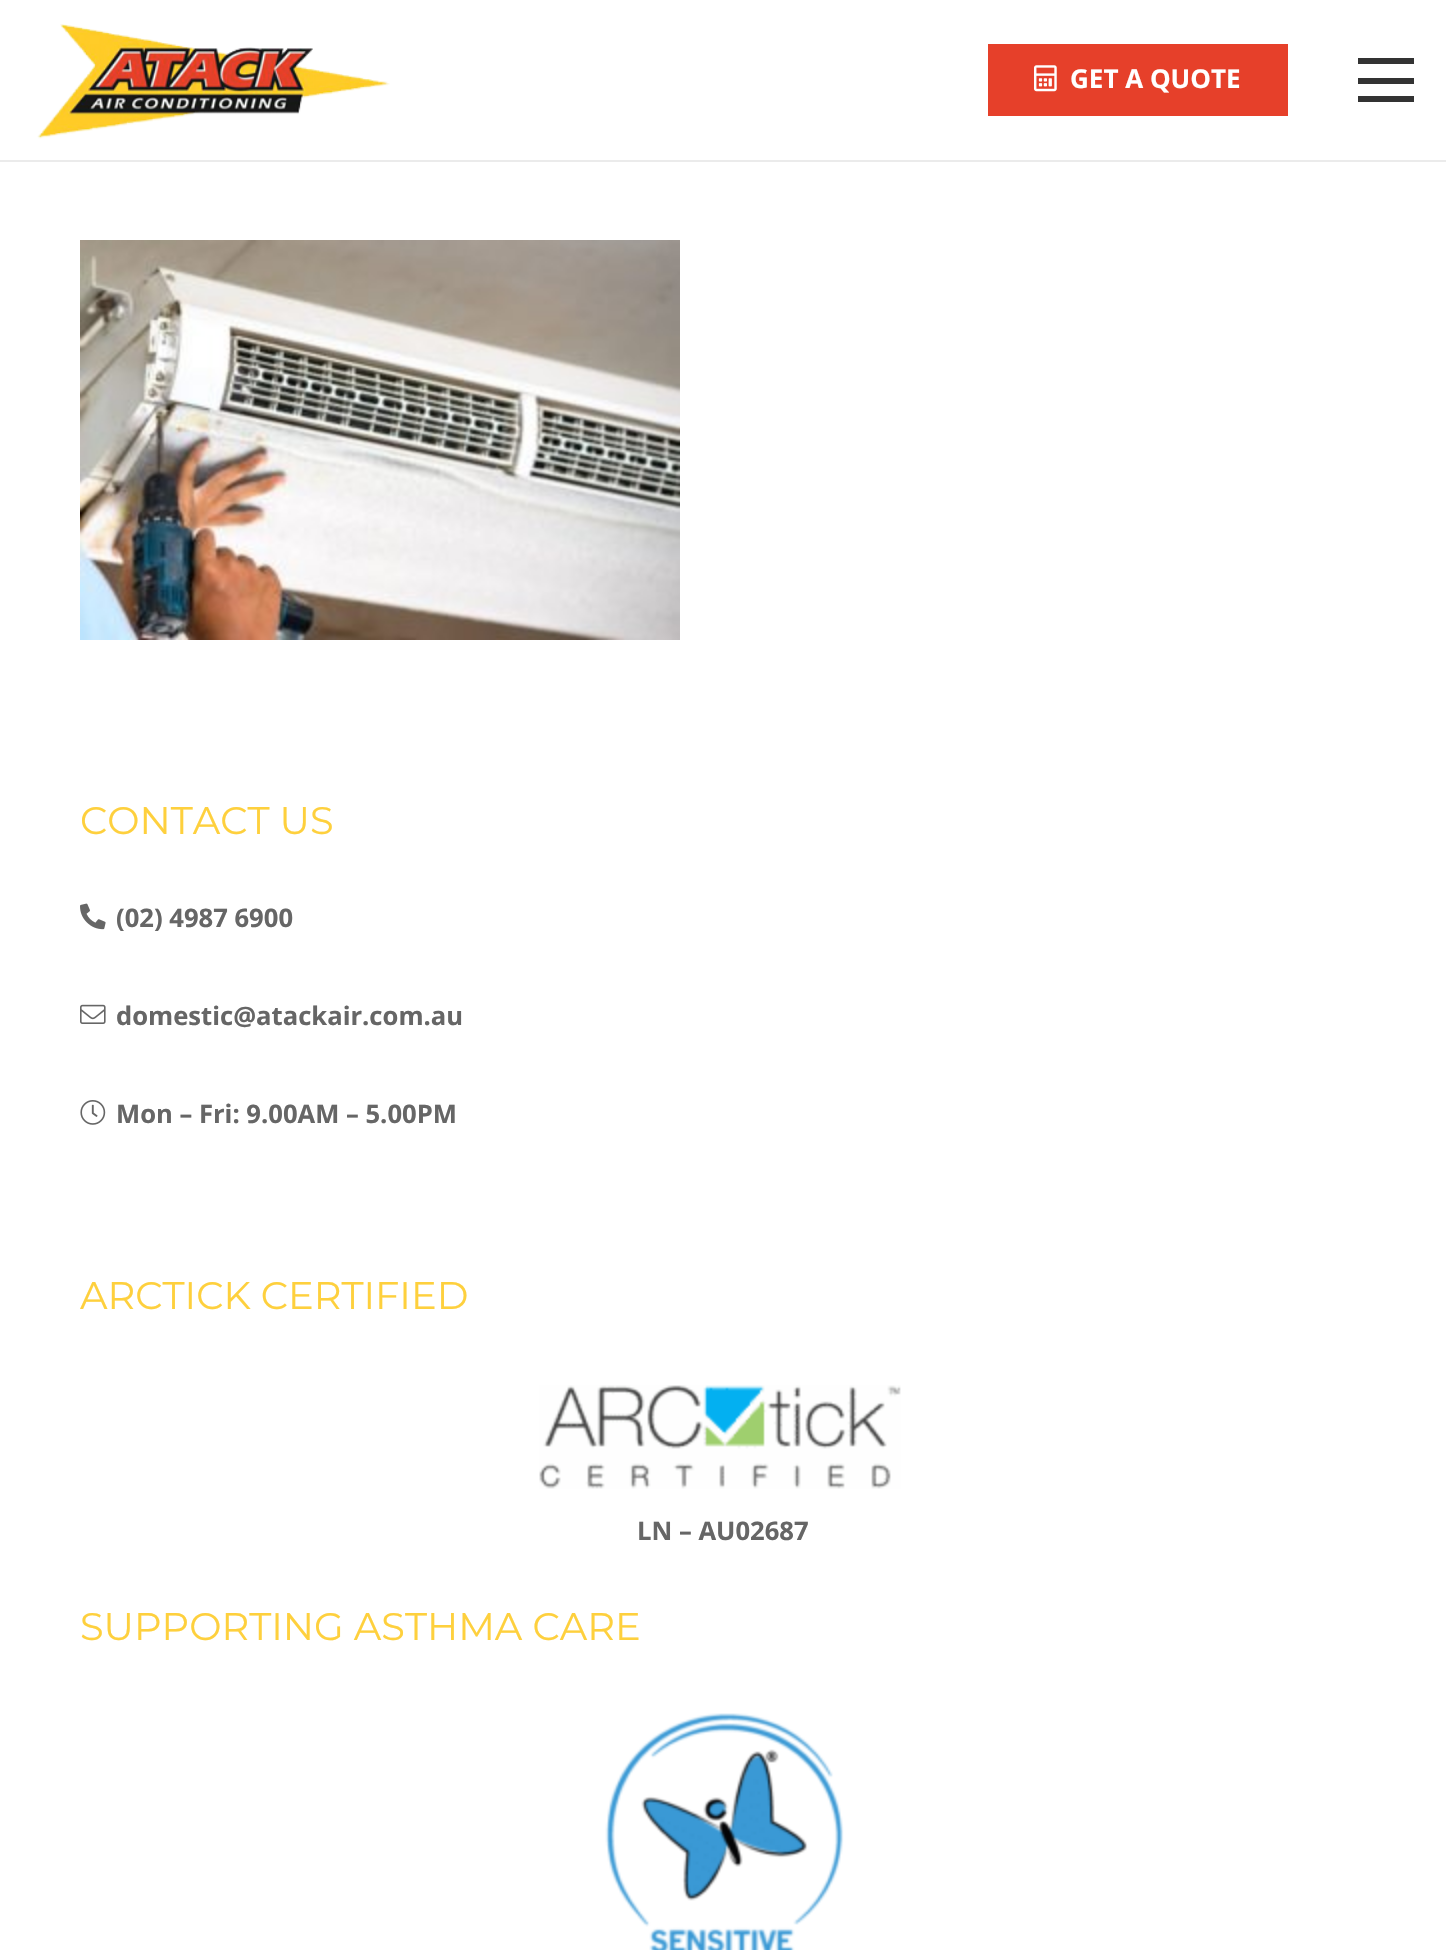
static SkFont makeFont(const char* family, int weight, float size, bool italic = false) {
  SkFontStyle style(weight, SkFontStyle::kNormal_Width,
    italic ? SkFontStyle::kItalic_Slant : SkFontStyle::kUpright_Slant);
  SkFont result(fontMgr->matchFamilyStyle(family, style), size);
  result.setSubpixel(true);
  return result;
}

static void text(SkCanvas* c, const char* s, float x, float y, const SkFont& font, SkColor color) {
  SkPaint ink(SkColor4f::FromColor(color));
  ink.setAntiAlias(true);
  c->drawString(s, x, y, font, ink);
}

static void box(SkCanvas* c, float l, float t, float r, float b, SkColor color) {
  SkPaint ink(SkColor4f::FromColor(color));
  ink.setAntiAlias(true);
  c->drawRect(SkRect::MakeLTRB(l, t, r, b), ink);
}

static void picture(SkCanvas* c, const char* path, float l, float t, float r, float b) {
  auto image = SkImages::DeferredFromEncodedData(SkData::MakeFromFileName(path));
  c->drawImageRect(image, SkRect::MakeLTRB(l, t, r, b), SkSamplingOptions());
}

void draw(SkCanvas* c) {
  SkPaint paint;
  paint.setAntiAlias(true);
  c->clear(0xffffffff);
  box(c, 0, 160, 1446, 162, 0xffebebeb);
  picture(c, "img_01.png", 37, 24, 390, 139);
  box(c, 988, 44, 1288, 116, 0xffe6402a);
  picture(c, "img_02.png", 1034, 65, 1057, 92);
  SkFont face1 = makeFont("Open Sans", 700, 26);
  text(c, "GET A QUOTE", 1070, 88, face1, 0xffffffff);
  box(c, 1358, 78, 1414, 84, 0xff333333);
  box(c, 1358, 58, 1414, 64, 0xff333333);
  box(c, 1358, 96, 1414, 102, 0xff333333);
  picture(c, "img_03.png", 80, 240, 680, 640);
  SkFont face2 = makeFont("Montserrat", 400, 38.4f);
  text(c, "CONTACT US", 80, 834, face2, 0xfffed03d);
  picture(c, "img_04.png", 80, 903, 106, 930);
  SkFont face3 = makeFont("Open Sans", 700, 25.6f);
  text(c, "(02) 4987 6900", 116, 927, face3, 0xff666666);
  picture(c, "img_05.png", 80, 1004, 106, 1024);
  text(c, "domestic@atackair.com.au", 116, 1025, face3, 0xff666666);
  picture(c, "img_06.png", 80, 1100, 106, 1125);
  text(c, "Mon – Fri: 9.00AM – 5.00PM", 116, 1123, face3, 0xff666666);
  text(c, "ARCTICK CERTIFIED", 80, 1309, face2, 0xfffed03d);
  picture(c, "img_07.png", 539, 1385, 901, 1489);
  text(c, "LN – AU02687", 637, 1540, face3, 0xff666666);
  text(c, "SUPPORTING ASTHMA CARE", 80, 1640, face2, 0xfffed03d);
  picture(c, "img_08.png", 605, 1713, 844, 1950);
}
